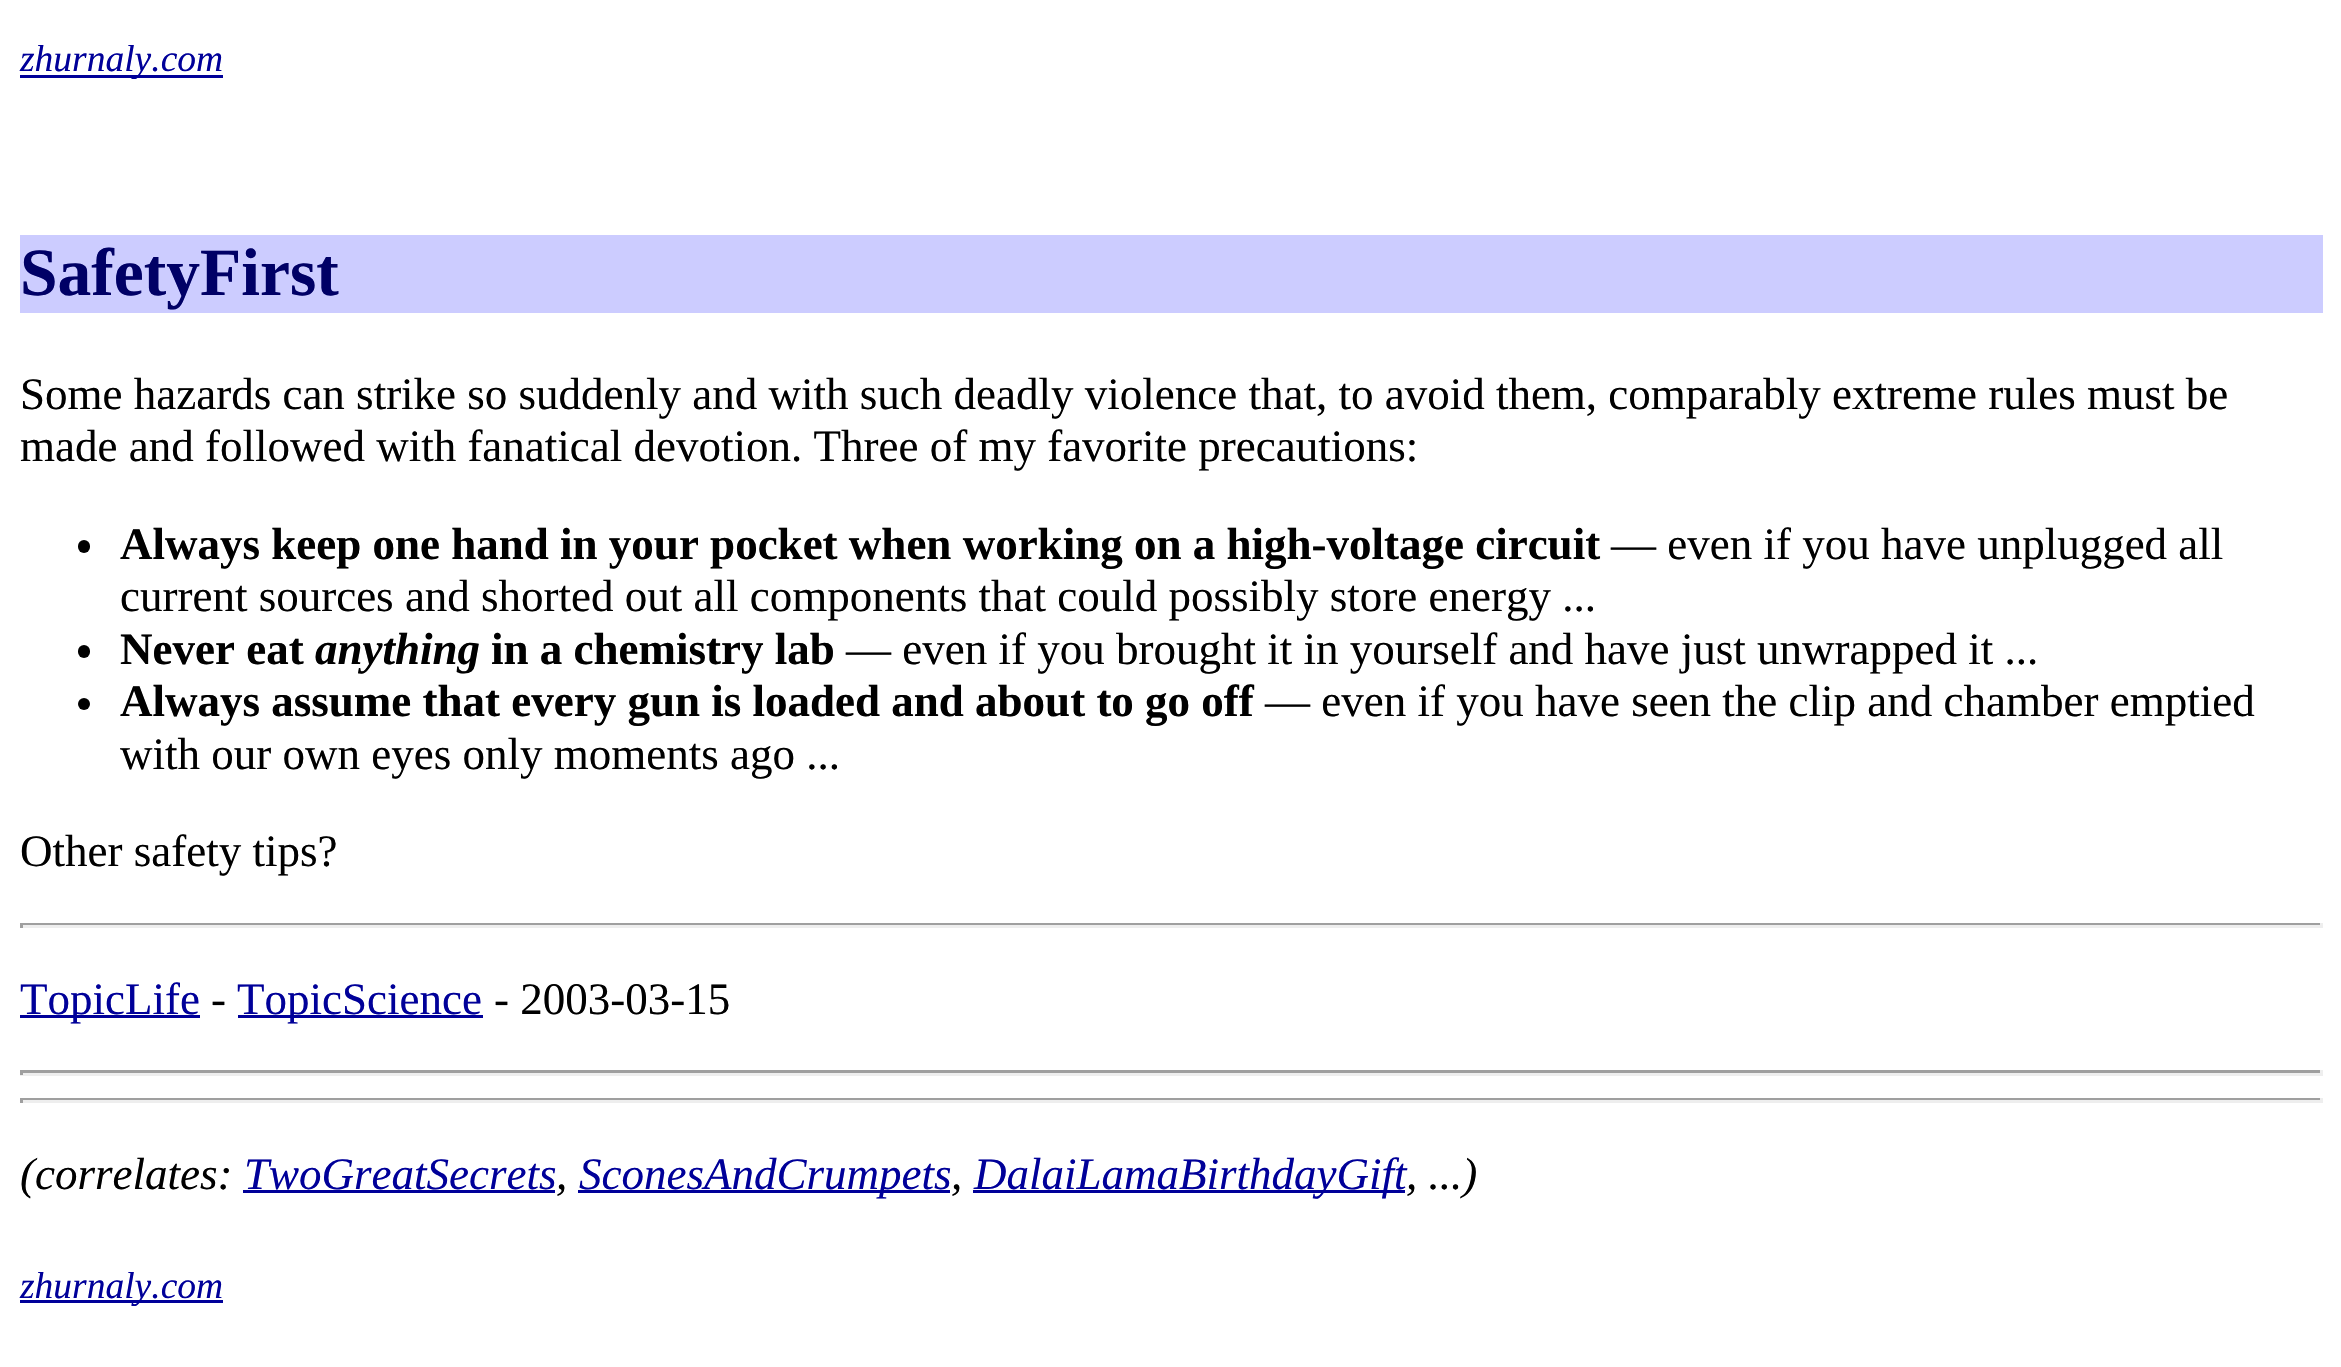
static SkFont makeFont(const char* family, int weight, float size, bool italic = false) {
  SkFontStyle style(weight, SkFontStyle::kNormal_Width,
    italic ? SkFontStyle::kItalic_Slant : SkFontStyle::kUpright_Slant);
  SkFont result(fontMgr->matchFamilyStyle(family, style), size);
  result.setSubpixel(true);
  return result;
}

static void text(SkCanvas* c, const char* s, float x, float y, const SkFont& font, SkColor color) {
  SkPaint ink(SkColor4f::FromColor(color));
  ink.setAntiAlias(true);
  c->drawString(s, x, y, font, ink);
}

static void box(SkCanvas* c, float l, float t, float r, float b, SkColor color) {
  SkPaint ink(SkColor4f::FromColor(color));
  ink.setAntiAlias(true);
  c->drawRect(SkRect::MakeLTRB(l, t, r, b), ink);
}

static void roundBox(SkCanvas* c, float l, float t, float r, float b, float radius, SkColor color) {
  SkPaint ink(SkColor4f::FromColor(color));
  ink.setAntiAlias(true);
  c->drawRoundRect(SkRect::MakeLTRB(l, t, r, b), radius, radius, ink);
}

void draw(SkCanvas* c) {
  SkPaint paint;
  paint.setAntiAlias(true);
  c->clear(0xffffffff);
  box(c, 20, 75, 223, 78, 0xff000099);
  SkFont face1 = makeFont("Liberation Serif", 400, 37.5f, true);
  text(c, "zhurnaly.com", 20, 71, face1, 0xff000099);
  box(c, 20, 235, 2323, 313, 0xffccccff);
  SkFont face2 = makeFont("Liberation Serif", 700, 67.5f);
  text(c, "SafetyFirst", 20, 295, face2, 0xff000066);
  SkFont face3 = makeFont("Liberation Serif", 400, 45);
  text(c, "Some hazards can strike so suddenly and with such deadly violence that, to avoid them, comparably extreme rules must be", 20, 409, face3, 0xff000000);
  text(c, "made and followed with fanatical devotion. Three of my favorite precautions:", 20, 461, face3, 0xff000000);
  roundBox(c, 78, 540, 90, 553, 6, 0xff000000);
  SkFont face4 = makeFont("Liberation Serif", 700, 45);
  text(c, "Always keep one hand in your pocket when working on a high-voltage circuit", 120, 559, face4, 0xff000000);
  text(c, "— even if you have unplugged all", 1611, 559, face3, 0xff000000);
  text(c, "current sources and shorted out all components that could possibly store energy ...", 120, 611, face3, 0xff000000);
  roundBox(c, 78, 645, 90, 658, 6, 0xff000000);
  text(c, "Never eat", 120, 664, face4, 0xff000000);
  SkFont face5 = makeFont("Liberation Serif", 700, 45, true);
  text(c, "anything", 315, 664, face5, 0xff000000);
  text(c, "in a chemistry lab", 491, 664, face4, 0xff000000);
  text(c, "— even if you brought it in yourself and have just unwrapped it ...", 846, 664, face3, 0xff000000);
  paint.setColor(0xff000000);
  c->drawCircle(84, 704, 6, paint);
  text(c, "Always assume that every gun is loaded and about to go off", 120, 716, face4, 0xff000000);
  text(c, "— even if you have seen the clip and chamber emptied", 1265, 716, face3, 0xff000000);
  text(c, "with our own eyes only moments ago ...", 120, 769, face3, 0xff000000);
  text(c, "Other safety tips?", 20, 866, face3, 0xff000000);
  box(c, 20, 923, 2323, 925, 0xff9f9f9f);
  box(c, 2320, 923, 2323, 928, 0xffeeeeee);
  box(c, 20, 925, 2323, 928, 0xffeeeeee);
  box(c, 20, 923, 23, 928, 0xff9f9f9f);
  box(c, 20, 1015, 200, 1018, 0xff000099);
  text(c, "TopicLife", 20, 1014, face3, 0xff000099);
  text(c, "-", 211, 1014, face3, 0xff000000);
  box(c, 238, 1015, 483, 1018, 0xff000099);
  text(c, "TopicScience", 237, 1014, face3, 0xff000099);
  text(c, "- 2003-03-15", 494, 1014, face3, 0xff000000);
  box(c, 20, 1070, 2323, 1073, 0xff9f9f9f);
  box(c, 2320, 1070, 2323, 1075, 0xffeeeeee);
  box(c, 20, 1073, 2323, 1076, 0xffeeeeee);
  box(c, 20, 1070, 23, 1075, 0xff9f9f9f);
  box(c, 20, 1098, 2323, 1100, 0xff9f9f9f);
  box(c, 2320, 1098, 2323, 1103, 0xffeeeeee);
  box(c, 20, 1100, 2323, 1103, 0xffeeeeee);
  box(c, 20, 1098, 23, 1103, 0xff9f9f9f);
  SkFont face6 = makeFont("Liberation Serif", 400, 45, true);
  text(c, "(correlates:", 20, 1189, face6, 0xff000000);
  text(c, "TwoGreatSecrets", 244, 1189, face6, 0xff000099);
  text(c, ",", 556, 1189, face6, 0xff000000);
  box(c, 243, 1190, 555, 1193, 0xff000099);
  box(c, 578, 1190, 950, 1193, 0xff000099);
  text(c, "SconesAndCrumpets", 579, 1189, face6, 0xff000099);
  text(c, ",", 951, 1189, face6, 0xff000000);
  box(c, 973, 1190, 1405, 1193, 0xff000099);
  text(c, "DalaiLamaBirthdayGift", 974, 1189, face6, 0xff000099);
  text(c, ", ...)", 1406, 1189, face6, 0xff000000);
  box(c, 20, 1300, 223, 1303, 0xff000099);
  text(c, "zhurnaly.com", 20, 1298, face1, 0xff000099);
}
